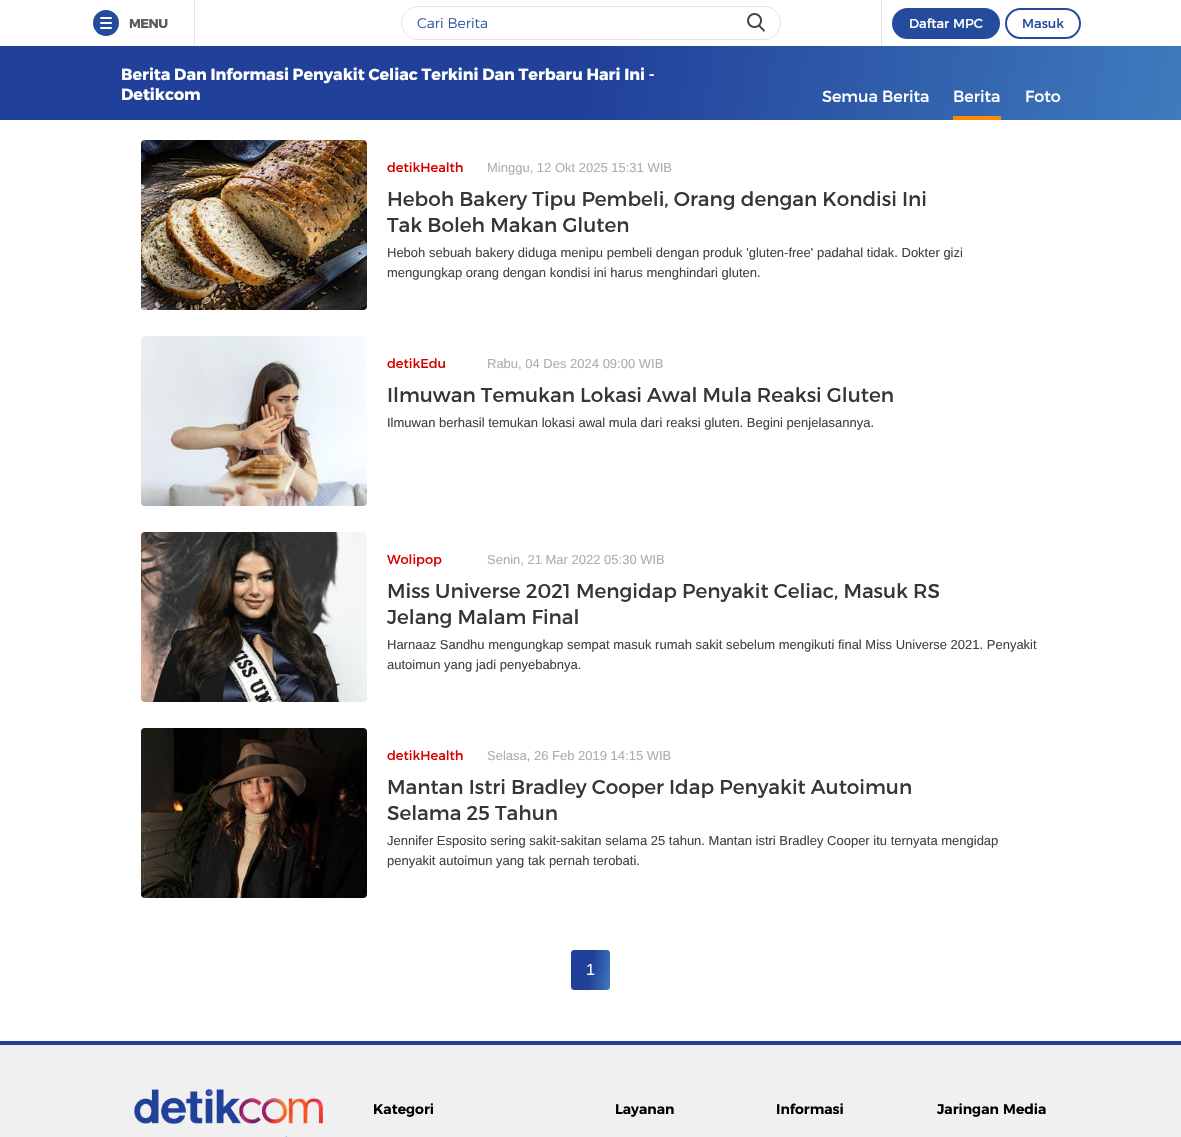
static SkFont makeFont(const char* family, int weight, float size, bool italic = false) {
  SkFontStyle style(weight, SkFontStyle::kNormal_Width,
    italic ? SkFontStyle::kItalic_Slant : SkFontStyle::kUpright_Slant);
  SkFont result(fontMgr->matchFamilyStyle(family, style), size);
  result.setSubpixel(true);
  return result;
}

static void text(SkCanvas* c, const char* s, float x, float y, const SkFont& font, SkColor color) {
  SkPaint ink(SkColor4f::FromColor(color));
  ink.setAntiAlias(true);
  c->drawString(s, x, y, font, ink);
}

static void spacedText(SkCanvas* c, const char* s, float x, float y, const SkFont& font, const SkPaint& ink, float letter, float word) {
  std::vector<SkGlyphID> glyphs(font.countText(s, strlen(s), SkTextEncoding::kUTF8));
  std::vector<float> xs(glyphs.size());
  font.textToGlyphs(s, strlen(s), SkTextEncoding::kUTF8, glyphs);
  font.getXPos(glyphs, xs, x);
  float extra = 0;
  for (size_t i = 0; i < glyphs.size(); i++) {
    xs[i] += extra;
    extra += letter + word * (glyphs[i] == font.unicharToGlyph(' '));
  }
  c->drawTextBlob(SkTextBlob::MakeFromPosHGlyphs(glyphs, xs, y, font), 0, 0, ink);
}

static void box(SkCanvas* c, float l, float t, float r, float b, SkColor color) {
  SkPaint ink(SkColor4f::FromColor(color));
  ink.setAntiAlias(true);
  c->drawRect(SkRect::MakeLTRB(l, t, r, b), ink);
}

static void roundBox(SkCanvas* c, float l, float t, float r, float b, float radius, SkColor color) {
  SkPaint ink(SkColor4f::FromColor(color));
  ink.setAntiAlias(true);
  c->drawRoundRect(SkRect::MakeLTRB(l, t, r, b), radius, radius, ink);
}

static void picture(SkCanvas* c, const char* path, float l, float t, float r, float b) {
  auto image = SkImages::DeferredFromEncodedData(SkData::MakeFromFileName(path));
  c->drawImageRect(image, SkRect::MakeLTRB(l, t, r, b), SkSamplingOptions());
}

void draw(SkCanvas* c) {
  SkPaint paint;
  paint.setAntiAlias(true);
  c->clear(0xffffffff);
  box(c, 194, 0, 195, 46, 0xffe5e5e5);
  paint.setColor(0xff244b9c);
  c->drawCircle(106, 23, 13, paint);
  roundBox(c, 100, 17, 112, 19, 1, 0xffffffff);
  roundBox(c, 100, 22, 112, 24, 1, 0xffffffff);
  roundBox(c, 100, 27, 112, 29, 1, 0xffffffff);
  SkFont face1 = makeFont("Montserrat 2", 700, 13);
  paint.setColor(0xff5b5b5b);
  spacedText(c, "MENU", 129, 28, face1, paint, -0.5f, 0);
  paint.setStyle(SkPaint::kStroke_Style);
  paint.setStrokeWidth(1);
  paint.setColor(0xffe5e5e5);
  c->drawRoundRect(SkRect::MakeLTRB(401.5f, 6.5f, 780.5f, 39.5f), 16.5f, 16.5f, paint);
  SkFont face2 = makeFont("Montserrat", 300, 14);
  text(c, "Cari Berita", 417, 28, face2, 0xff244b9c);
  picture(c, "img_01.png", 747, 13, 765, 32);
  box(c, 881, 0, 882, 46, 0xffe5e5e5);
  paint.setStyle(SkPaint::kFill_Style);
  paint.setColor(0xff244b9c);
  c->drawRoundRect(SkRect::MakeLTRB(893, 9, 999, 38), 14.5f, 14.5f, paint);
  paint.setStyle(SkPaint::kStroke_Style);
  paint.setStrokeWidth(2);
  c->drawRoundRect(SkRect::MakeLTRB(893, 9, 999, 38), 14.5f, 14.5f, paint);
  SkFont face3 = makeFont("Montserrat 2", 400, 13);
  text(c, "Daftar MPC", 909, 28, face3, 0xffffffff);
  c->drawRoundRect(SkRect::MakeLTRB(1006, 9, 1080, 38), 14.5f, 14.5f, paint);
  text(c, "Masuk", 1022, 28, face3, 0xff244b9c);
  paint.setStyle(SkPaint::kFill_Style);
  {
    const SkColor colors[] = {0xff21409a, 0xff3f7bbd};
    const float stops[] = {0.5f, 1};
    const SkPoint ends[] = {{11, -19}, {1170, 185}};
    paint.setShader(SkGradientShader::MakeLinear(ends, colors, stops, 2, SkTileMode::kClamp));
    paint.setAlpha(255);
  }
  c->drawRect(SkRect::MakeLTRB(0, 46, 1181, 120), paint);
  SkFont face4 = makeFont("Montserrat", 700, 16);
  text(c, "Berita Dan Informasi Penyakit Celiac Terkini Dan Terbaru Hari Ini -", 121, 80, face4, 0xffffffff);
  text(c, "Detikcom", 121, 100, face4, 0xffffffff);
  SkFont face5 = makeFont("Montserrat", 400, 16);
  text(c, "Semua Berita", 822, 102, face5, 0xffffffff);
  text(c, "Berita", 953, 102, face5, 0xffffffff);
  box(c, 953, 116, 1001, 120, 0xffff8900);
  text(c, "Foto", 1025, 102, face5, 0xffffffff);
  picture(c, "img_02.png", 141, 140, 367, 310);
  SkFont face6 = makeFont("Montserrat", 400, 13);
  text(c, "detikHealth", 387, 172, face6, 0xffd70000);
  SkFont face7 = makeFont("Liberation Sans", 400, 13);
  text(c, "Minggu, 12 Okt 2025 15:31 WIB", 487, 172, face7, 0xffaeaeae);
  SkFont face8 = makeFont("Montserrat", 400, 20);
  text(c, "Heboh Bakery Tipu Pembeli, Orang dengan Kondisi Ini", 387, 206, face8, 0xff363636);
  text(c, "Tak Boleh Makan Gluten", 387, 232, face8, 0xff363636);
  text(c, "Heboh sebuah bakery diduga menipu pembeli dengan produk 'gluten-free' padahal tidak. Dokter gizi", 387, 257, face7, 0xff424242);
  text(c, "mengungkap orang dengan kondisi ini harus menghindari gluten.", 387, 277, face7, 0xff424242);
  picture(c, "img_03.png", 141, 336, 367, 506);
  text(c, "detikEdu", 387, 368, face6, 0xffd70000);
  text(c, "Rabu, 04 Des 2024 09:00 WIB", 487, 368, face7, 0xffaeaeae);
  text(c, "Ilmuwan Temukan Lokasi Awal Mula Reaksi Gluten", 387, 402, face8, 0xff363636);
  text(c, "Ilmuwan berhasil temukan lokasi awal mula dari reaksi gluten. Begini penjelasannya.", 387, 427, face7, 0xff424242);
  picture(c, "img_04.png", 141, 532, 367, 702);
  text(c, "Wolipop", 387, 564, face6, 0xffd70000);
  text(c, "Senin, 21 Mar 2022 05:30 WIB", 487, 564, face7, 0xffaeaeae);
  text(c, "Miss Universe 2021 Mengidap Penyakit Celiac, Masuk RS", 387, 598, face8, 0xff363636);
  text(c, "Jelang Malam Final", 387, 624, face8, 0xff363636);
  text(c, "Harnaaz Sandhu mengungkap sempat masuk rumah sakit sebelum mengikuti final Miss Universe 2021. Penyakit", 387, 649, face7, 0xff424242);
  text(c, "autoimun yang jadi penyebabnya.", 387, 669, face7, 0xff424242);
  picture(c, "img_05.png", 141, 728, 367, 898);
  text(c, "detikHealth", 387, 760, face6, 0xffd70000);
  text(c, "Selasa, 26 Feb 2019 14:15 WIB", 487, 760, face7, 0xffaeaeae);
  text(c, "Mantan Istri Bradley Cooper Idap Penyakit Autoimun", 387, 794, face8, 0xff363636);
  text(c, "Selama 25 Tahun", 387, 820, face8, 0xff363636);
  text(c, "Jennifer Esposito sering sakit-sakitan selama 25 tahun. Mantan istri Bradley Cooper itu ternyata mengidap", 387, 845, face7, 0xff424242);
  text(c, "penyakit autoimun yang tak pernah terobati.", 387, 865, face7, 0xff424242);
  c->save();
  c->clipPath(SkPathBuilder().moveTo(574, 949).lineTo(607, 949).cubicTo(609, 949, 611, 951, 611, 953).lineTo(611, 987).cubicTo(611, 989, 609, 991, 607, 991).lineTo(574, 991).cubicTo(572, 991, 570, 989, 570, 987).lineTo(570, 953).cubicTo(570, 951, 572, 949, 574, 949).close().detach(), true);
  {
    const SkColor colors[] = {0xff21409a, 0xff3f7bbd};
    const float stops[] = {0.5f, 1};
    const SkPoint ends[] = {{568, 966}, {613, 974}};
    paint.setShader(SkGradientShader::MakeLinear(ends, colors, stops, 2, SkTileMode::kClamp));
    paint.setAlpha(255);
  }
  c->drawRect(SkRect::MakeLTRB(571, 950, 610, 990), paint);
  c->restore();
  paint.setStyle(SkPaint::kStroke_Style);
  paint.setStrokeWidth(1);
  paint.setShader(nullptr);
  paint.setColor(0xffffffff);
  c->drawRoundRect(SkRect::MakeLTRB(570.5f, 949.5f, 610.5f, 990.5f), 3.5f, 3.5f, paint);
  SkFont face9 = makeFont("Liberation Sans", 400, 16);
  text(c, "1", 586, 975, face9, 0xffffffff);
  box(c, 0, 1045, 1181, 1137, 0xfff0f0f0);
  box(c, 0, 1041, 1181, 1045, 0xff21409a);
  picture(c, "img_06.png", 134, 1089, 323, 1124);
  picture(c, "img_07.png", 285, 1136, 287, 1137);
  SkFont face10 = makeFont("Montserrat", 600, 14);
  text(c, "Kategori", 373, 1114, face10, 0xff000000);
  text(c, "Layanan", 615, 1114, face10, 0xff000000);
  text(c, "Informasi", 776, 1114, face10, 0xff000000);
  text(c, "Jaringan Media", 937, 1114, face10, 0xff000000);
}
